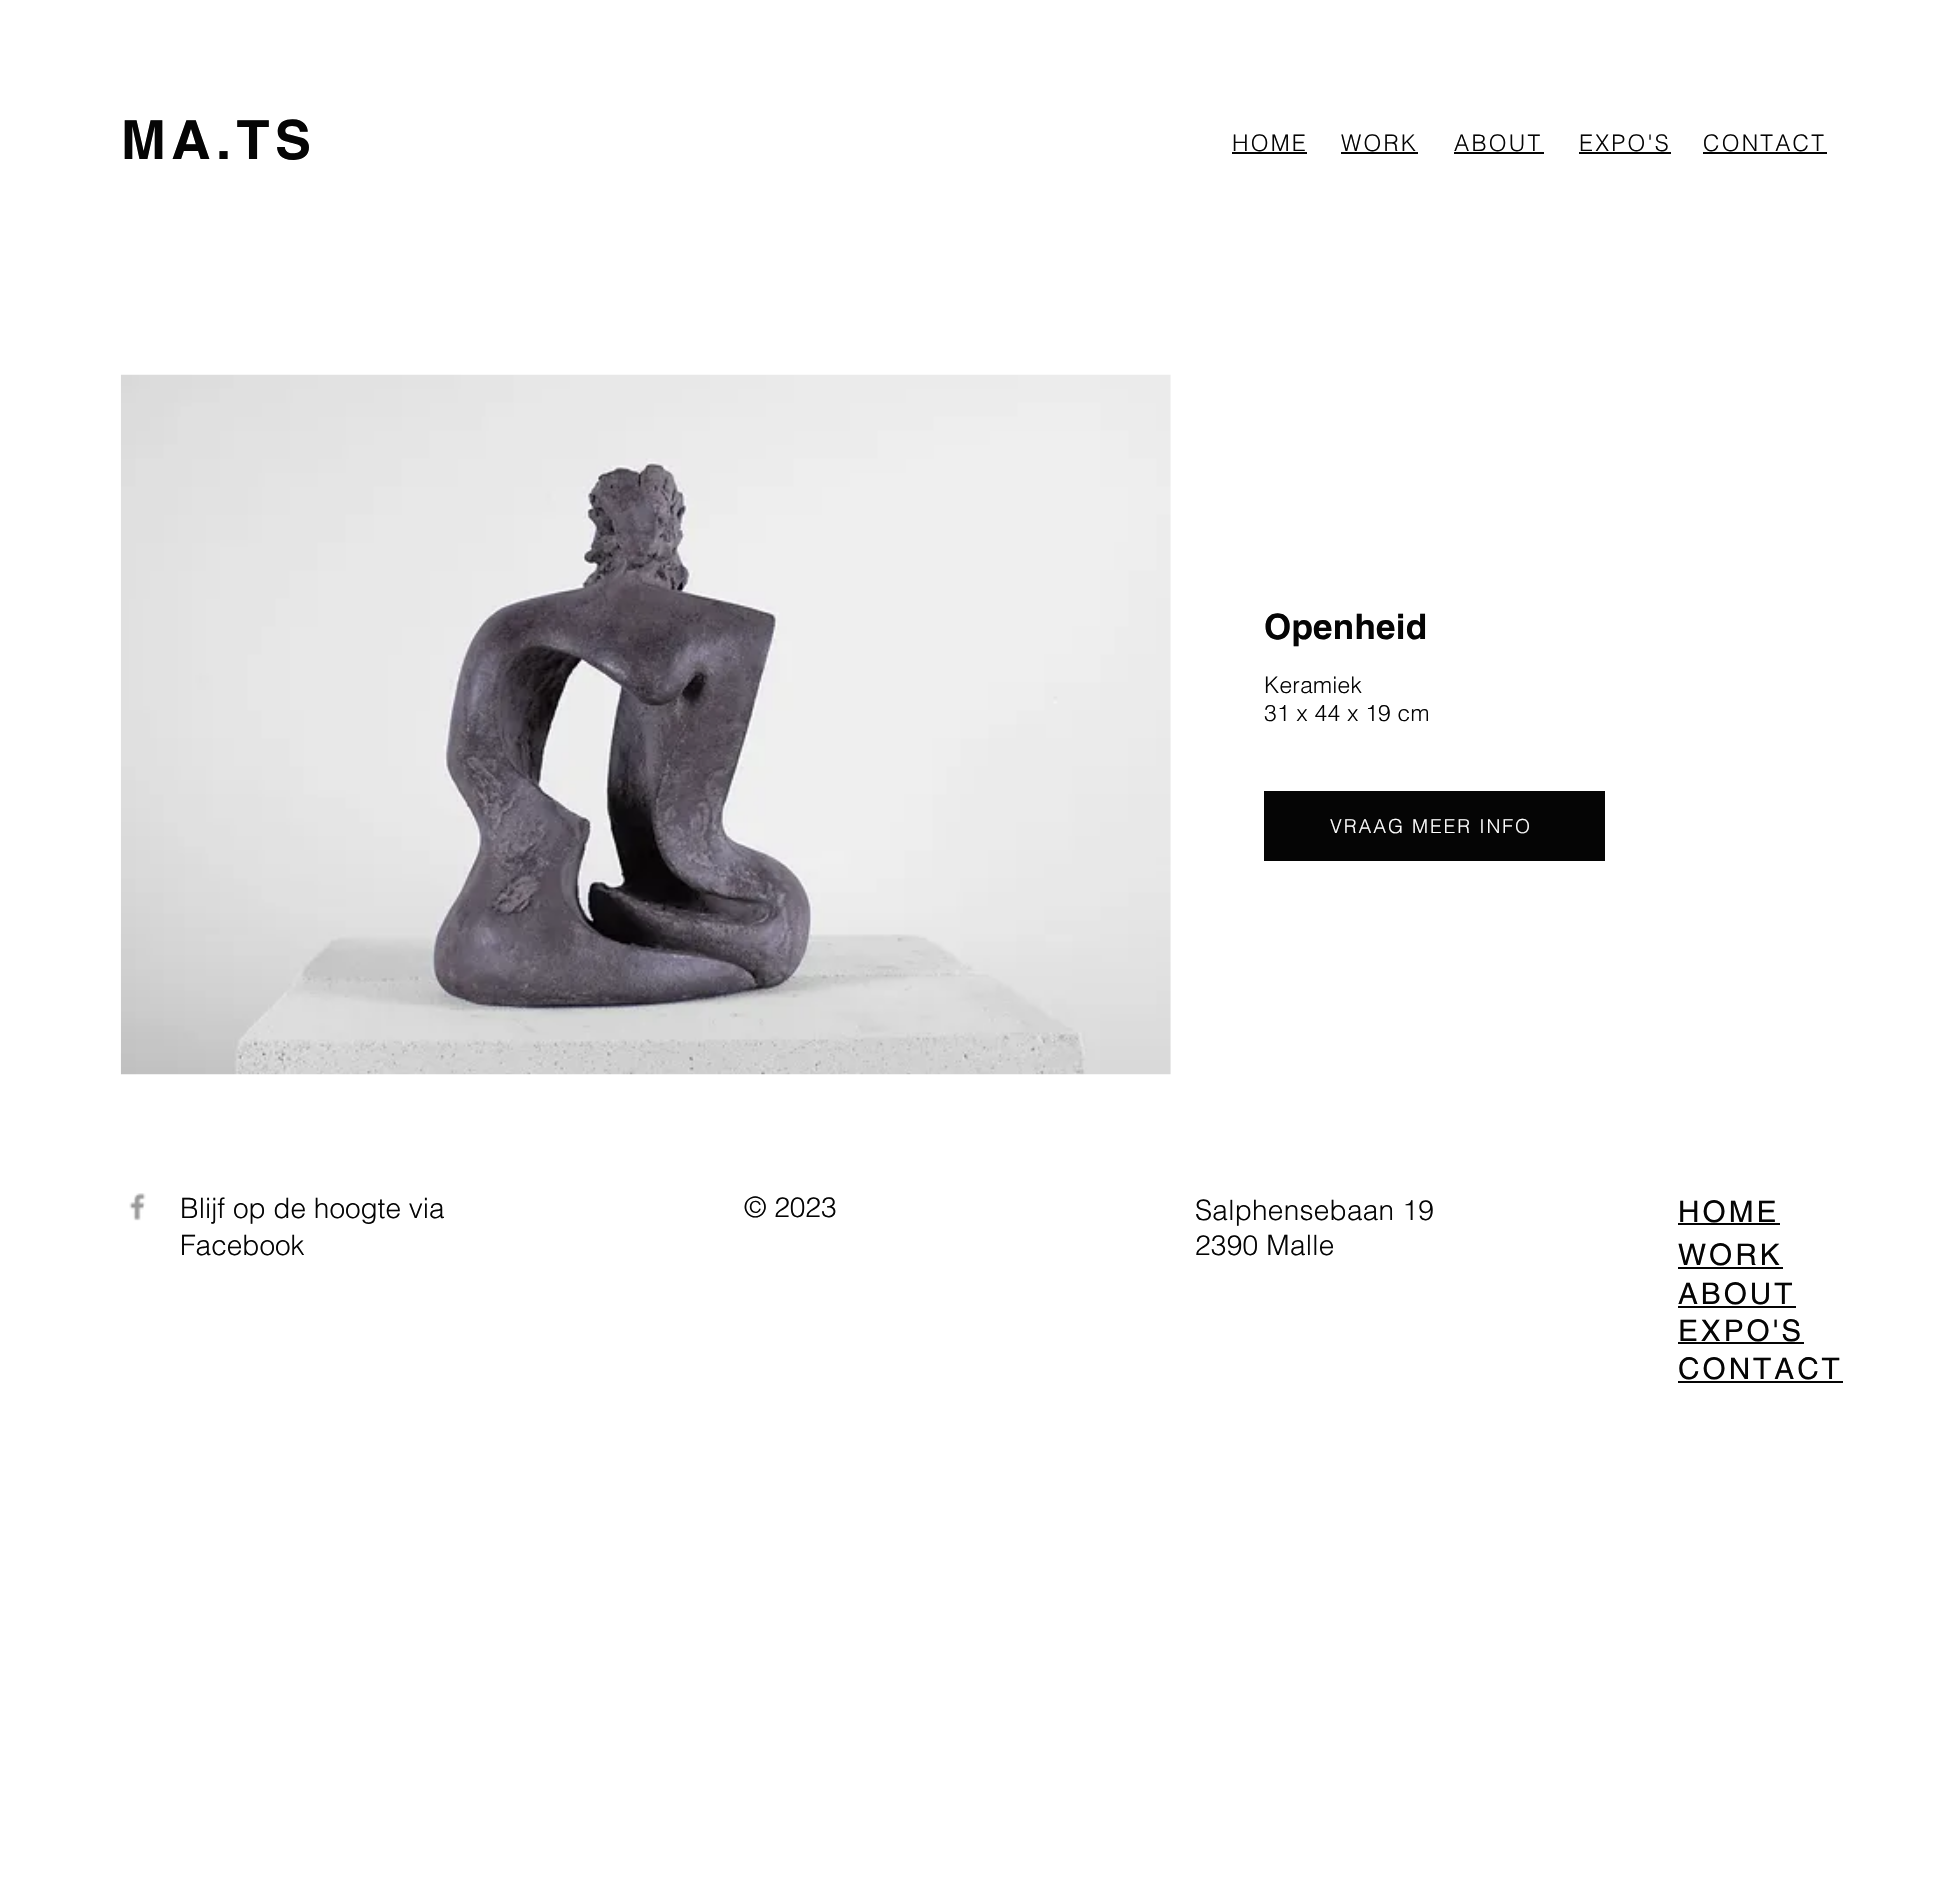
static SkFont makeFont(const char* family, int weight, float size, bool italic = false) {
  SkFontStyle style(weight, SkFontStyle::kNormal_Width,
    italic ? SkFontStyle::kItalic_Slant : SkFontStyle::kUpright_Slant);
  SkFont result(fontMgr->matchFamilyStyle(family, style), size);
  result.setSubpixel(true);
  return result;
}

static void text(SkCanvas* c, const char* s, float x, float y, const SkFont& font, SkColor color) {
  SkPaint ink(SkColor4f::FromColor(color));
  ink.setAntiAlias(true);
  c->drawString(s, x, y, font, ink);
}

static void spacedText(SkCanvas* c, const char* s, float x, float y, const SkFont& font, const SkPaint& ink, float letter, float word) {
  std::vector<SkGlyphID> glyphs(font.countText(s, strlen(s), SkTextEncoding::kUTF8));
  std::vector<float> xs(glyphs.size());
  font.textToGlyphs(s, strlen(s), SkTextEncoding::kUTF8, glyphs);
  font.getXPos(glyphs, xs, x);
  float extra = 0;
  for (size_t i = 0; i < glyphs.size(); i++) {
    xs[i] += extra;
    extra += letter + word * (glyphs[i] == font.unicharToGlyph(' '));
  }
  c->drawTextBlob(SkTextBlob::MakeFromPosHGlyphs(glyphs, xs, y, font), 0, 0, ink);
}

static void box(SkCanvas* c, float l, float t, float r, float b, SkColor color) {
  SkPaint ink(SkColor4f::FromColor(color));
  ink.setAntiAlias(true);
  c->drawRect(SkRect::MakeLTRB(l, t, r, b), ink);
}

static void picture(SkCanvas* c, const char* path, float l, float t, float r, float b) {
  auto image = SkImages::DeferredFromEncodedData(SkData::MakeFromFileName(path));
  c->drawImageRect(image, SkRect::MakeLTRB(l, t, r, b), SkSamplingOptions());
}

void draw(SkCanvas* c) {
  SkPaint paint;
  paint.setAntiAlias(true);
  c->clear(0xffffffff);
  SkFont face1 = makeFont("helvetica", 700, 54);
  paint.setColor(0xff050505);
  spacedText(c, "MA.TS", 121, 159, face1, paint, 5.5f, 0);
  SkFont face2 = makeFont("helvetica", 300, 22.75f);
  spacedText(c, "HOME", 1232, 151, face2, paint, 2.25f, 0);
  box(c, 1232, 152, 1307, 154, 0xff050505);
  spacedText(c, "WORK", 1341, 151, face2, paint, 2.25f, 0);
  box(c, 1341, 152, 1418, 154, 0xff050505);
  spacedText(c, "ABOUT", 1454, 151, face2, paint, 2.25f, 0);
  box(c, 1454, 152, 1544, 154, 0xff050505);
  spacedText(c, "EXPO'S", 1579, 151, face2, paint, 2.25f, 0);
  box(c, 1579, 152, 1671, 154, 0xff050505);
  spacedText(c, "CONTACT", 1703, 151, face2, paint, 2.25f, 0);
  box(c, 1703, 152, 1827, 154, 0xff050505);
  picture(c, "img_01.png", 120, 374, 1171, 1075);
  SkFont face3 = makeFont("helvetica", 700, 35);
  spacedText(c, "Openheid", 1264, 639, face3, paint, 0.25f, 0);
  spacedText(c, "Keramiek", 1264, 693, face2, paint, 0.25f, 0);
  spacedText(c, "31 x 44 x 19 cm", 1264, 721, face2, paint, 0.25f, 0);
  box(c, 1264, 791, 1605, 861, 0xff050505);
  SkFont face4 = makeFont("helvetica", 300, 19.25f);
  paint.setColor(0xffffffff);
  spacedText(c, "VRAAG MEER INFO", 1330, 833, face4, paint, 1.9f, 0);
  picture(c, "img_02.png", 129, 1193, 146, 1221);
  SkFont face5 = makeFont("helvetica", 300, 28);
  text(c, "Blijf op de hoogte via", 180, 1218, face5, 0xff050505);
  text(c, "Facebook", 180, 1255, face5, 0xff050505);
  text(c, "© 2023", 744, 1217, face5, 0xff050505);
  paint.setColor(0xff050505);
  spacedText(c, "Salphensebaan 19", 1195, 1220, face5, paint, 0.25f, 0);
  spacedText(c, "2390 Malle", 1195, 1255, face5, paint, 0.25f, 0);
  SkFont face6 = makeFont("helvetica", 400, 29.75f);
  spacedText(c, "HOME", 1678, 1222, face6, paint, 3, 0);
  box(c, 1678, 1223, 1780, 1225, 0xff050505);
  spacedText(c, "WORK", 1678, 1265, face6, paint, 3, 0);
  box(c, 1678, 1267, 1783, 1269, 0xff050505);
  spacedText(c, "ABOUT", 1678, 1304, face6, paint, 3, 0);
  box(c, 1678, 1306, 1796, 1308, 0xff050505);
  spacedText(c, "EXPO'S", 1678, 1341, face6, paint, 3, 0);
  box(c, 1678, 1342, 1804, 1344, 0xff050505);
  spacedText(c, "CONTACT", 1678, 1379, face6, paint, 3, 0);
  box(c, 1678, 1381, 1843, 1383, 0xff050505);
}
